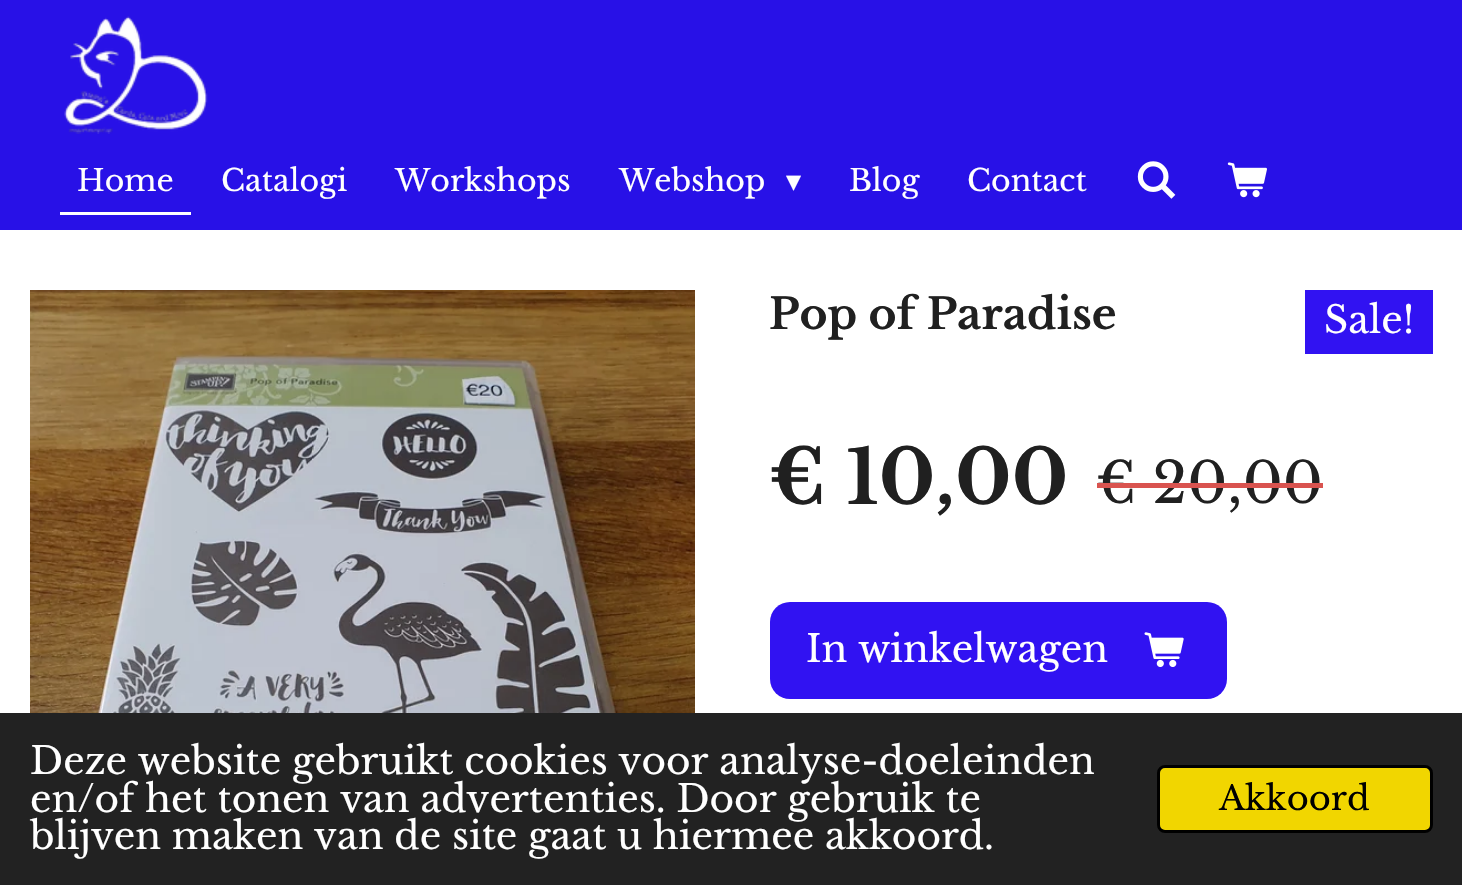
static SkFont makeFont(const char* family, int weight, float size, bool italic = false) {
  SkFontStyle style(weight, SkFontStyle::kNormal_Width,
    italic ? SkFontStyle::kItalic_Slant : SkFontStyle::kUpright_Slant);
  SkFont result(fontMgr->matchFamilyStyle(family, style), size);
  result.setSubpixel(true);
  return result;
}

static void text(SkCanvas* c, const char* s, float x, float y, const SkFont& font, SkColor color) {
  SkPaint ink(SkColor4f::FromColor(color));
  ink.setAntiAlias(true);
  c->drawString(s, x, y, font, ink);
}

static void box(SkCanvas* c, float l, float t, float r, float b, SkColor color) {
  SkPaint ink(SkColor4f::FromColor(color));
  ink.setAntiAlias(true);
  c->drawRect(SkRect::MakeLTRB(l, t, r, b), ink);
}

static void roundBox(SkCanvas* c, float l, float t, float r, float b, float radius, SkColor color) {
  SkPaint ink(SkColor4f::FromColor(color));
  ink.setAntiAlias(true);
  c->drawRoundRect(SkRect::MakeLTRB(l, t, r, b), radius, radius, ink);
}

static void picture(SkCanvas* c, const char* path, float l, float t, float r, float b) {
  auto image = SkImages::DeferredFromEncodedData(SkData::MakeFromFileName(path));
  c->drawImageRect(image, SkRect::MakeLTRB(l, t, r, b), SkSamplingOptions());
}

void draw(SkCanvas* c) {
  SkPaint paint;
  paint.setAntiAlias(true);
  c->clear(0xffffffff);
  box(c, 0, 0, 1462, 230, 0xff2811e7);
  picture(c, "img_01.png", 64, 16, 208, 134);
  box(c, 60, 212, 191, 215, 0xffffffff);
  SkFont face1 = makeFont("Libre Baskerville", 400, 30);
  text(c, "Home", 77, 191, face1, 0xffffffff);
  text(c, "Catalogi", 221, 191, face1, 0xffffffff);
  text(c, "Workshops", 395, 191, face1, 0xffffffff);
  text(c, "Webshop", 619, 191, face1, 0xffffffff);
  SkFont face2 = makeFont("DejaVu Sans", 400, 30);
  text(c, "▾", 786, 191, face2, 0xffffffff);
  text(c, "Blog", 849, 191, face1, 0xffffffff);
  text(c, "Contact", 967, 191, face1, 0xffffffff);
  picture(c, "img_02.png", 1137, 161, 1176, 199);
  picture(c, "img_03.png", 1227, 162, 1267, 198);
  picture(c, "img_04.png", 30, 290, 695, 713);
  SkFont face3 = makeFont("Libre Baskerville", 700, 42.5f);
  text(c, "Pop of Paradise", 769, 329, face3, 0xff202020);
  box(c, 1305, 290, 1433, 354, 0xff3112f2);
  SkFont face4 = makeFont("Libre Baskerville", 400, 37.5f);
  text(c, "Sale!", 1324, 333, face4, 0xffffffff);
  SkFont face5 = makeFont("Libre Baskerville", 700, 75);
  text(c, "€ 10,00", 769, 504, face5, 0xff202020);
  SkFont face6 = makeFont("Libre Baskerville", 400, 56.25f);
  text(c, "€ 20,00", 1096, 503, face6, 0xff202020);
  box(c, 1097, 483, 1323, 488, 0xffd9534f);
  roundBox(c, 770, 602, 1227, 699, 20, 0xff3112f2);
  text(c, "In winkelwagen", 806, 662, face4, 0xffffffff);
  picture(c, "img_05.png", 1144, 632, 1184, 667);
  box(c, 0, 713, 1462, 885, 0xff222222);
  text(c, "Deze website gebruikt cookies voor analyse-doeleinden", 30, 774, face4, 0xffffffff);
  text(c, "en/of het tonen van advertenties. Door gebruik te", 30, 812, face4, 0xffffffff);
  text(c, "blijven maken van de site gaat u hiermee akkoord.", 30, 849, face4, 0xffffffff);
  paint.setColor(0xfff1d600);
  c->drawRoundRect(SkRect::MakeLTRB(1158.5f, 766.5f, 1431.5f, 831.5f), 6.5f, 6.5f, paint);
  paint.setStyle(SkPaint::kStroke_Style);
  paint.setStrokeWidth(3);
  paint.setColor(0xff000000);
  c->drawRoundRect(SkRect::MakeLTRB(1158.5f, 766.5f, 1431.5f, 831.5f), 6.5f, 6.5f, paint);
  SkFont face7 = makeFont("Libre Baskerville", 400, 33.75f);
  text(c, "Akkoord", 1219, 810, face7, 0xff000000);
}
